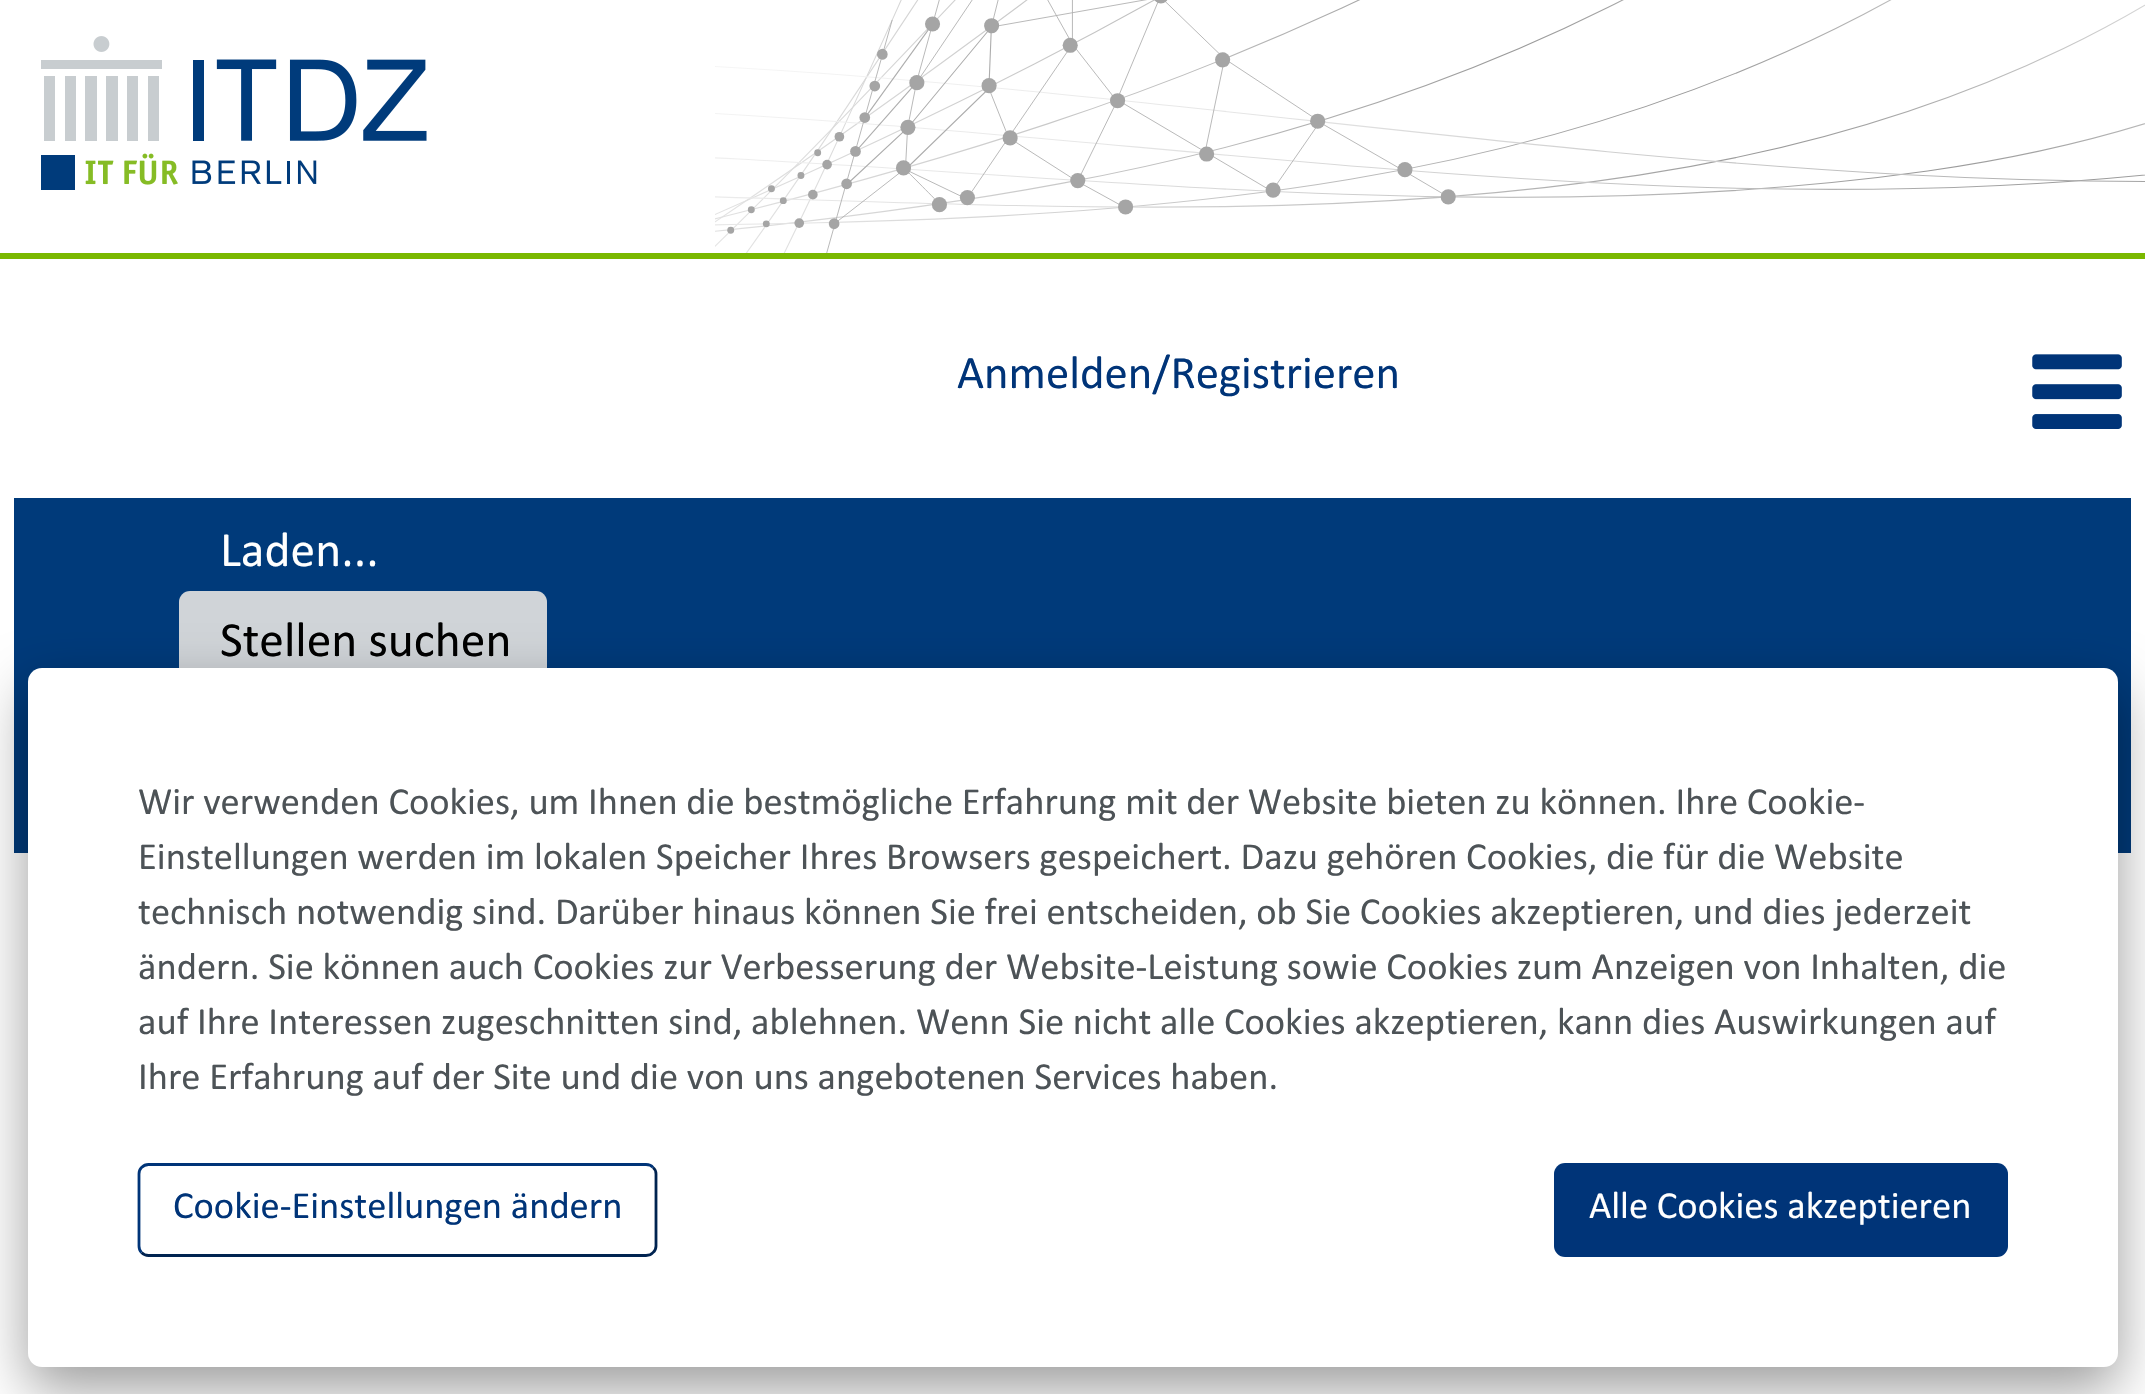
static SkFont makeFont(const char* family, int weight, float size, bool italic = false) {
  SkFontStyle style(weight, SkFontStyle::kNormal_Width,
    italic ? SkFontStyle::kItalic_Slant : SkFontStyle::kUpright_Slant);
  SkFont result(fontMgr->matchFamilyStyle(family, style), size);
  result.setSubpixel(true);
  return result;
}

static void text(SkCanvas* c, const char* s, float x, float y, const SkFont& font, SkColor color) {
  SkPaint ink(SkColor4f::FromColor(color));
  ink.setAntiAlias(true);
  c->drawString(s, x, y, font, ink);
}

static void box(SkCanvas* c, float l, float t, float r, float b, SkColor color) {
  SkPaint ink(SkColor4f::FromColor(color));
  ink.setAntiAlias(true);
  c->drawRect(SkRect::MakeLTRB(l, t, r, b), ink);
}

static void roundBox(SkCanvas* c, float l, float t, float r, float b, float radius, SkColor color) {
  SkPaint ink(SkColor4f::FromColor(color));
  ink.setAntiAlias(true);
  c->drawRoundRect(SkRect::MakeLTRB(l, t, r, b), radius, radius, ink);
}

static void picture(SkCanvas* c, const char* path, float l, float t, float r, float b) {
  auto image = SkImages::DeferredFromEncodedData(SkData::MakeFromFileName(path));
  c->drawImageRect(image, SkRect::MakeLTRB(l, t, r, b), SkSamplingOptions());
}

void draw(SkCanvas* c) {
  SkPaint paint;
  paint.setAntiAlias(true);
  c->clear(0xffffffff);
  picture(c, "img_01.png", 41, 36, 427, 190);
  picture(c, "img_02.png", 715, 0, 2145, 253);
  box(c, 0, 253, 2145, 259, 0xff7ab800);
  SkFont face1 = makeFont("Calibri", 400, 46.75f);
  text(c, "Anmelden/Registrieren", 957, 388, face1, 0xff003478);
  picture(c, "img_03.png", 2032, 354, 2122, 429);
  box(c, 14, 498, 2131, 853, 0xff003a7a);
  SkFont face2 = makeFont("Calibri", 400, 49.5f);
  text(c, "Laden...", 220, 566, face2, 0xffffffff);
  roundBox(c, 179, 591, 547, 699, 11, 0xffd0d4d8);
  text(c, "Stellen suchen", 220, 656, face2, 0xff000000);
  paint.setColor(0x63000000);
  paint.setMaskFilter(SkMaskFilter::MakeBlur(kNormal_SkBlurStyle, 27.5f));
  c->drawRoundRect(SkRect::MakeLTRB(28, 690, 2118, 1389), 14, 14, paint);
  paint.setMaskFilter(nullptr);
  roundBox(c, 28, 668, 2118, 1367, 14, 0xffffffff);
  SkFont face3 = makeFont("Calibri", 400, 38.5f);
  text(c, "Wir verwenden Cookies, um Ihnen die bestmögliche Erfahrung mit der Website bieten zu können. Ihre Cookie-", 138, 814, face3, 0xff4d5357);
  text(c, "Einstellungen werden im lokalen Speicher Ihres Browsers gespeichert. Dazu gehören Cookies, die für die Website", 138, 869, face3, 0xff4d5357);
  text(c, "technisch notwendig sind. Darüber hinaus können Sie frei entscheiden, ob Sie Cookies akzeptieren, und dies jederzeit", 138, 924, face3, 0xff4d5357);
  text(c, "ändern. Sie können auch Cookies zur Verbesserung der Website-Leistung sowie Cookies zum Anzeigen von Inhalten, die", 138, 979, face3, 0xff4d5357);
  text(c, "auf Ihre Interessen zugeschnitten sind, ablehnen. Wenn Sie nicht alle Cookies akzeptieren, kann dies Auswirkungen auf", 138, 1034, face3, 0xff4d5357);
  text(c, "Ihre Erfahrung auf der Site und die von uns angebotenen Services haben.", 138, 1089, face3, 0xff4d5357);
  paint.setStyle(SkPaint::kStroke_Style);
  paint.setStrokeWidth(2.8f);
  paint.setColor(0xff002350);
  c->drawPath(SkPathBuilder().moveTo(653, 1167.5f).cubicTo(655, 1169, 656, 1171.5f, 656, 1174).lineTo(656, 1246).cubicTo(656, 1248.5f, 655, 1251, 653, 1252.5f).cubicTo(651.5f, 1254.5f, 649, 1255.5f, 646, 1255.5f).lineTo(148.5f, 1255.5f).cubicTo(146, 1255.5f, 143.5f, 1254.5f, 141.5f, 1252.5f).detach(), paint);
  paint.setColor(0xff003478);
  c->drawPath(SkPathBuilder().moveTo(141.5f, 1252.5f).cubicTo(140, 1251, 139, 1248.5f, 139, 1246).lineTo(139, 1174).cubicTo(139, 1171.5f, 140, 1169, 141.5f, 1167.5f).cubicTo(143.5f, 1165.5f, 146, 1164.5f, 148.5f, 1164.5f).lineTo(646, 1164.5f).cubicTo(649, 1164.5f, 651.5f, 1165.5f, 653, 1167.5f).detach(), paint);
  text(c, "Cookie-Einstellungen ändern", 173, 1218, face3, 0xff003478);
  roundBox(c, 1554, 1163, 2008, 1257, 11, 0xff003478);
  text(c, "Alle Cookies akzeptieren", 1589, 1218, face3, 0xffffffff);
}
